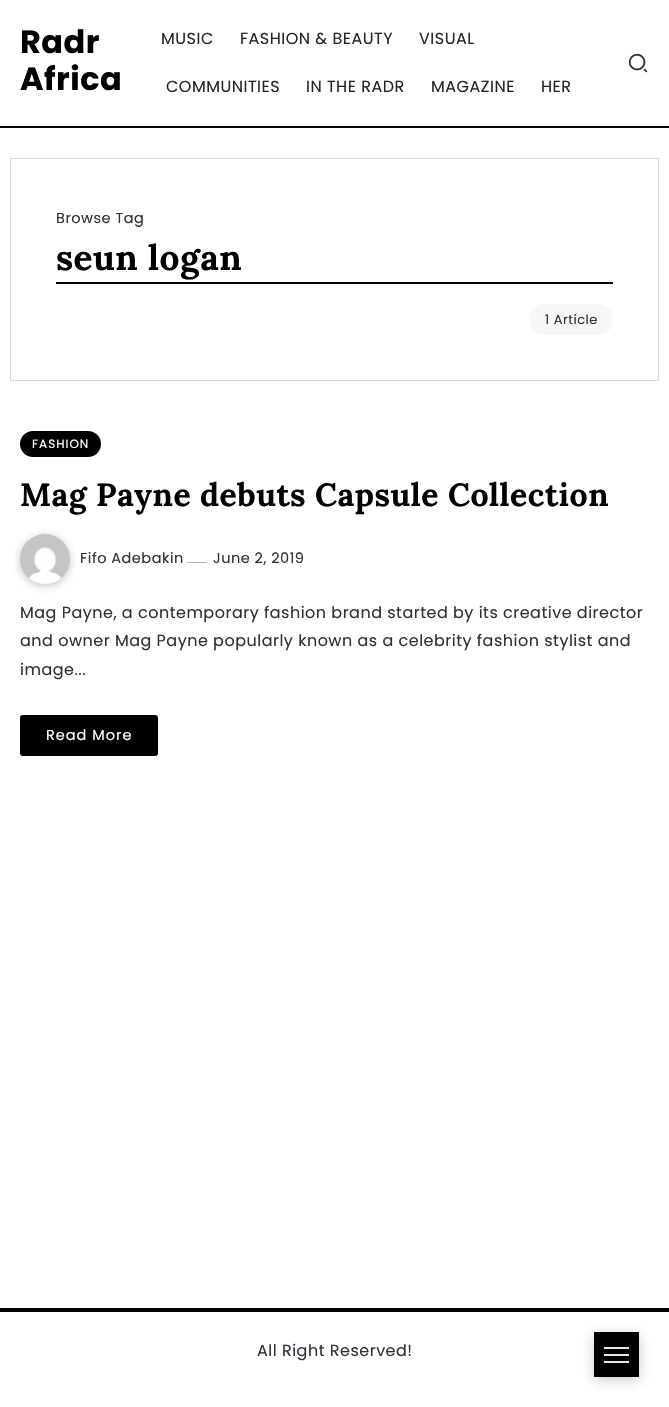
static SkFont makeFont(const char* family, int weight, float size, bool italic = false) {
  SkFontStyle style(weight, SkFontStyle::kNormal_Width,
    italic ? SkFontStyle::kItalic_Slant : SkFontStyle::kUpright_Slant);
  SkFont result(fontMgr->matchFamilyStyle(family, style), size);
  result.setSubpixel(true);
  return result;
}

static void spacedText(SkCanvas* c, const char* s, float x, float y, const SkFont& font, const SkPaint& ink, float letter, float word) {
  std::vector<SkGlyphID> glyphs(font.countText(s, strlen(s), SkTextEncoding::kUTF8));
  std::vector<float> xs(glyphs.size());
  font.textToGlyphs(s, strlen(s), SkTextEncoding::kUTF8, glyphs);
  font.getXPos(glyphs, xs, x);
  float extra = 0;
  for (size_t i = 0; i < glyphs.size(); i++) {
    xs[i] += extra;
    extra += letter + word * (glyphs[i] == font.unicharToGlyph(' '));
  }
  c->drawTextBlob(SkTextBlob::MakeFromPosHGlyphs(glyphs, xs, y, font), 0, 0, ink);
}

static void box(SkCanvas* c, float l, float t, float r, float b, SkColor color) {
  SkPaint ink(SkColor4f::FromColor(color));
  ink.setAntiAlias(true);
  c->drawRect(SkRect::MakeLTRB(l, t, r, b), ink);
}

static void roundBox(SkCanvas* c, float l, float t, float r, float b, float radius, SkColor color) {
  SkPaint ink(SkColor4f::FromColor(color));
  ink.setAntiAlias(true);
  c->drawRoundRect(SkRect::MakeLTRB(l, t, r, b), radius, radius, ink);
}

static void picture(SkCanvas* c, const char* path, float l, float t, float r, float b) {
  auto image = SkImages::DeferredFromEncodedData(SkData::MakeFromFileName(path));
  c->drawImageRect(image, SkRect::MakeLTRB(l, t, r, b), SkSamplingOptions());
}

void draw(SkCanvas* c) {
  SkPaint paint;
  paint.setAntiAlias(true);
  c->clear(0xffffffff);
  box(c, 0, 126, 669, 128, 0xff000000);
  SkFont face1 = makeFont("Poppins", 700, 32);
  paint.setColor(0xff000000);
  spacedText(c, "Radr", 20, 53, face1, paint, 0.5f, 0);
  spacedText(c, "Africa", 20, 90, face1, paint, 0.5f, 0);
  SkFont face2 = makeFont("Poppins", 400, 16);
  paint.setColor(0xff232428);
  spacedText(c, "MUSIC", 161, 44, face2, paint, 0.5f, 0);
  spacedText(c, "FASHION & BEAUTY", 240, 44, face2, paint, 0.5f, 0);
  spacedText(c, "VISUAL", 419, 44, face2, paint, 0.5f, 0);
  spacedText(c, "COMMUNITIES", 166, 92, face2, paint, 0.5f, 0);
  spacedText(c, "IN THE RADR", 306, 92, face2, paint, 0.5f, 0);
  spacedText(c, "MAGAZINE", 431, 92, face2, paint, 0.5f, 0);
  spacedText(c, "HER", 541, 92, face2, paint, 0.5f, 0);
  picture(c, "img_01.png", 628, 53, 648, 73);
  paint.setStyle(SkPaint::kStroke_Style);
  paint.setStrokeWidth(1);
  paint.setColor(0xffd9d9da);
  c->drawRect(SkRect::MakeLTRB(10.5f, 158.5f, 658.5f, 380.5f), paint);
  SkFont face3 = makeFont("Poppins", 400, 14.5f);
  paint.setStyle(SkPaint::kFill_Style);
  paint.setColor(0xff2e3039);
  spacedText(c, "Browse Tag", 56, 223, face3, paint, 0.5f, 0);
  box(c, 56, 282, 613, 284, 0xff000000);
  SkFont face4 = makeFont("Lora", 700, 35.25f);
  paint.setColor(0xff000000);
  spacedText(c, "seun logan", 56, 270, face4, paint, 0.5f, 0);
  roundBox(c, 529, 304, 613, 335, 15.5f, 0xfff7f7f7);
  SkFont face5 = makeFont("Poppins", 400, 13);
  paint.setColor(0xff2e3039);
  spacedText(c, "1 Article", 545, 324, face5, paint, 0.5f, 0);
  roundBox(c, 20, 431, 101, 457, 13, 0xff000000);
  SkFont face6 = makeFont("Poppins", 400, 12);
  paint.setColor(0xffffffff);
  spacedText(c, "FASHION", 32, 448, face6, paint, 1, 0);
  SkFont face7 = makeFont("Lora", 700, 32);
  paint.setColor(0xff000000);
  spacedText(c, "Mag Payne debuts Capsule Collection", 20, 506, face7, paint, 0.5f, 0);
  paint.setColor(0x4f393c4a);
  paint.setMaskFilter(SkMaskFilter::MakeBlur(kNormal_SkBlurStyle, 4));
  c->drawRoundRect(SkRect::MakeLTRB(20, 536, 70, 586), 25, 25, paint);
  paint.setMaskFilter(nullptr);
  picture(c, "img_02.png", 20, 534, 70, 584);
  paint.setColor(0xff2e3039);
  spacedText(c, "Fifo Adebakin", 80, 563, face3, paint, 0.5f, 0);
  box(c, 187, 562, 207, 563, 0xffb3b4b7);
  spacedText(c, "June 2, 2019", 213, 563, face3, paint, 0.5f, 0);
  spacedText(c, "Mag Payne, a contemporary fashion brand started by its creative director", 20, 618, face2, paint, 0.5f, 0);
  spacedText(c, "and owner Mag Payne popularly known as a celebrity fashion stylist and", 20, 646, face2, paint, 0.5f, 0);
  spacedText(c, "image...", 20, 675, face2, paint, 0.5f, 0);
  roundBox(c, 20, 715, 158, 756, 3, 0xff000000);
  paint.setColor(0xffffffff);
  spacedText(c, "Read More", 46, 740, face3, paint, 1, 0);
  box(c, 0, 1308, 669, 1312, 0xff000000);
  paint.setColor(0xff2e3039);
  spacedText(c, "All Right Reserved!", 257, 1356, face2, paint, 0.5f, 0);
  paint.setColor(0x3d28292f);
  paint.setMaskFilter(SkMaskFilter::MakeBlur(kNormal_SkBlurStyle, 6));
  c->drawRect(SkRect::MakeLTRB(594, 1335, 639, 1380), paint);
  paint.setMaskFilter(nullptr);
  box(c, 594, 1332, 639, 1377, 0xff000000);
  box(c, 604, 1347, 629, 1349, 0xffe6e6e6);
  box(c, 604, 1354, 629, 1356, 0xffe6e6e6);
  box(c, 604, 1361, 629, 1363, 0xffe6e6e6);
}
